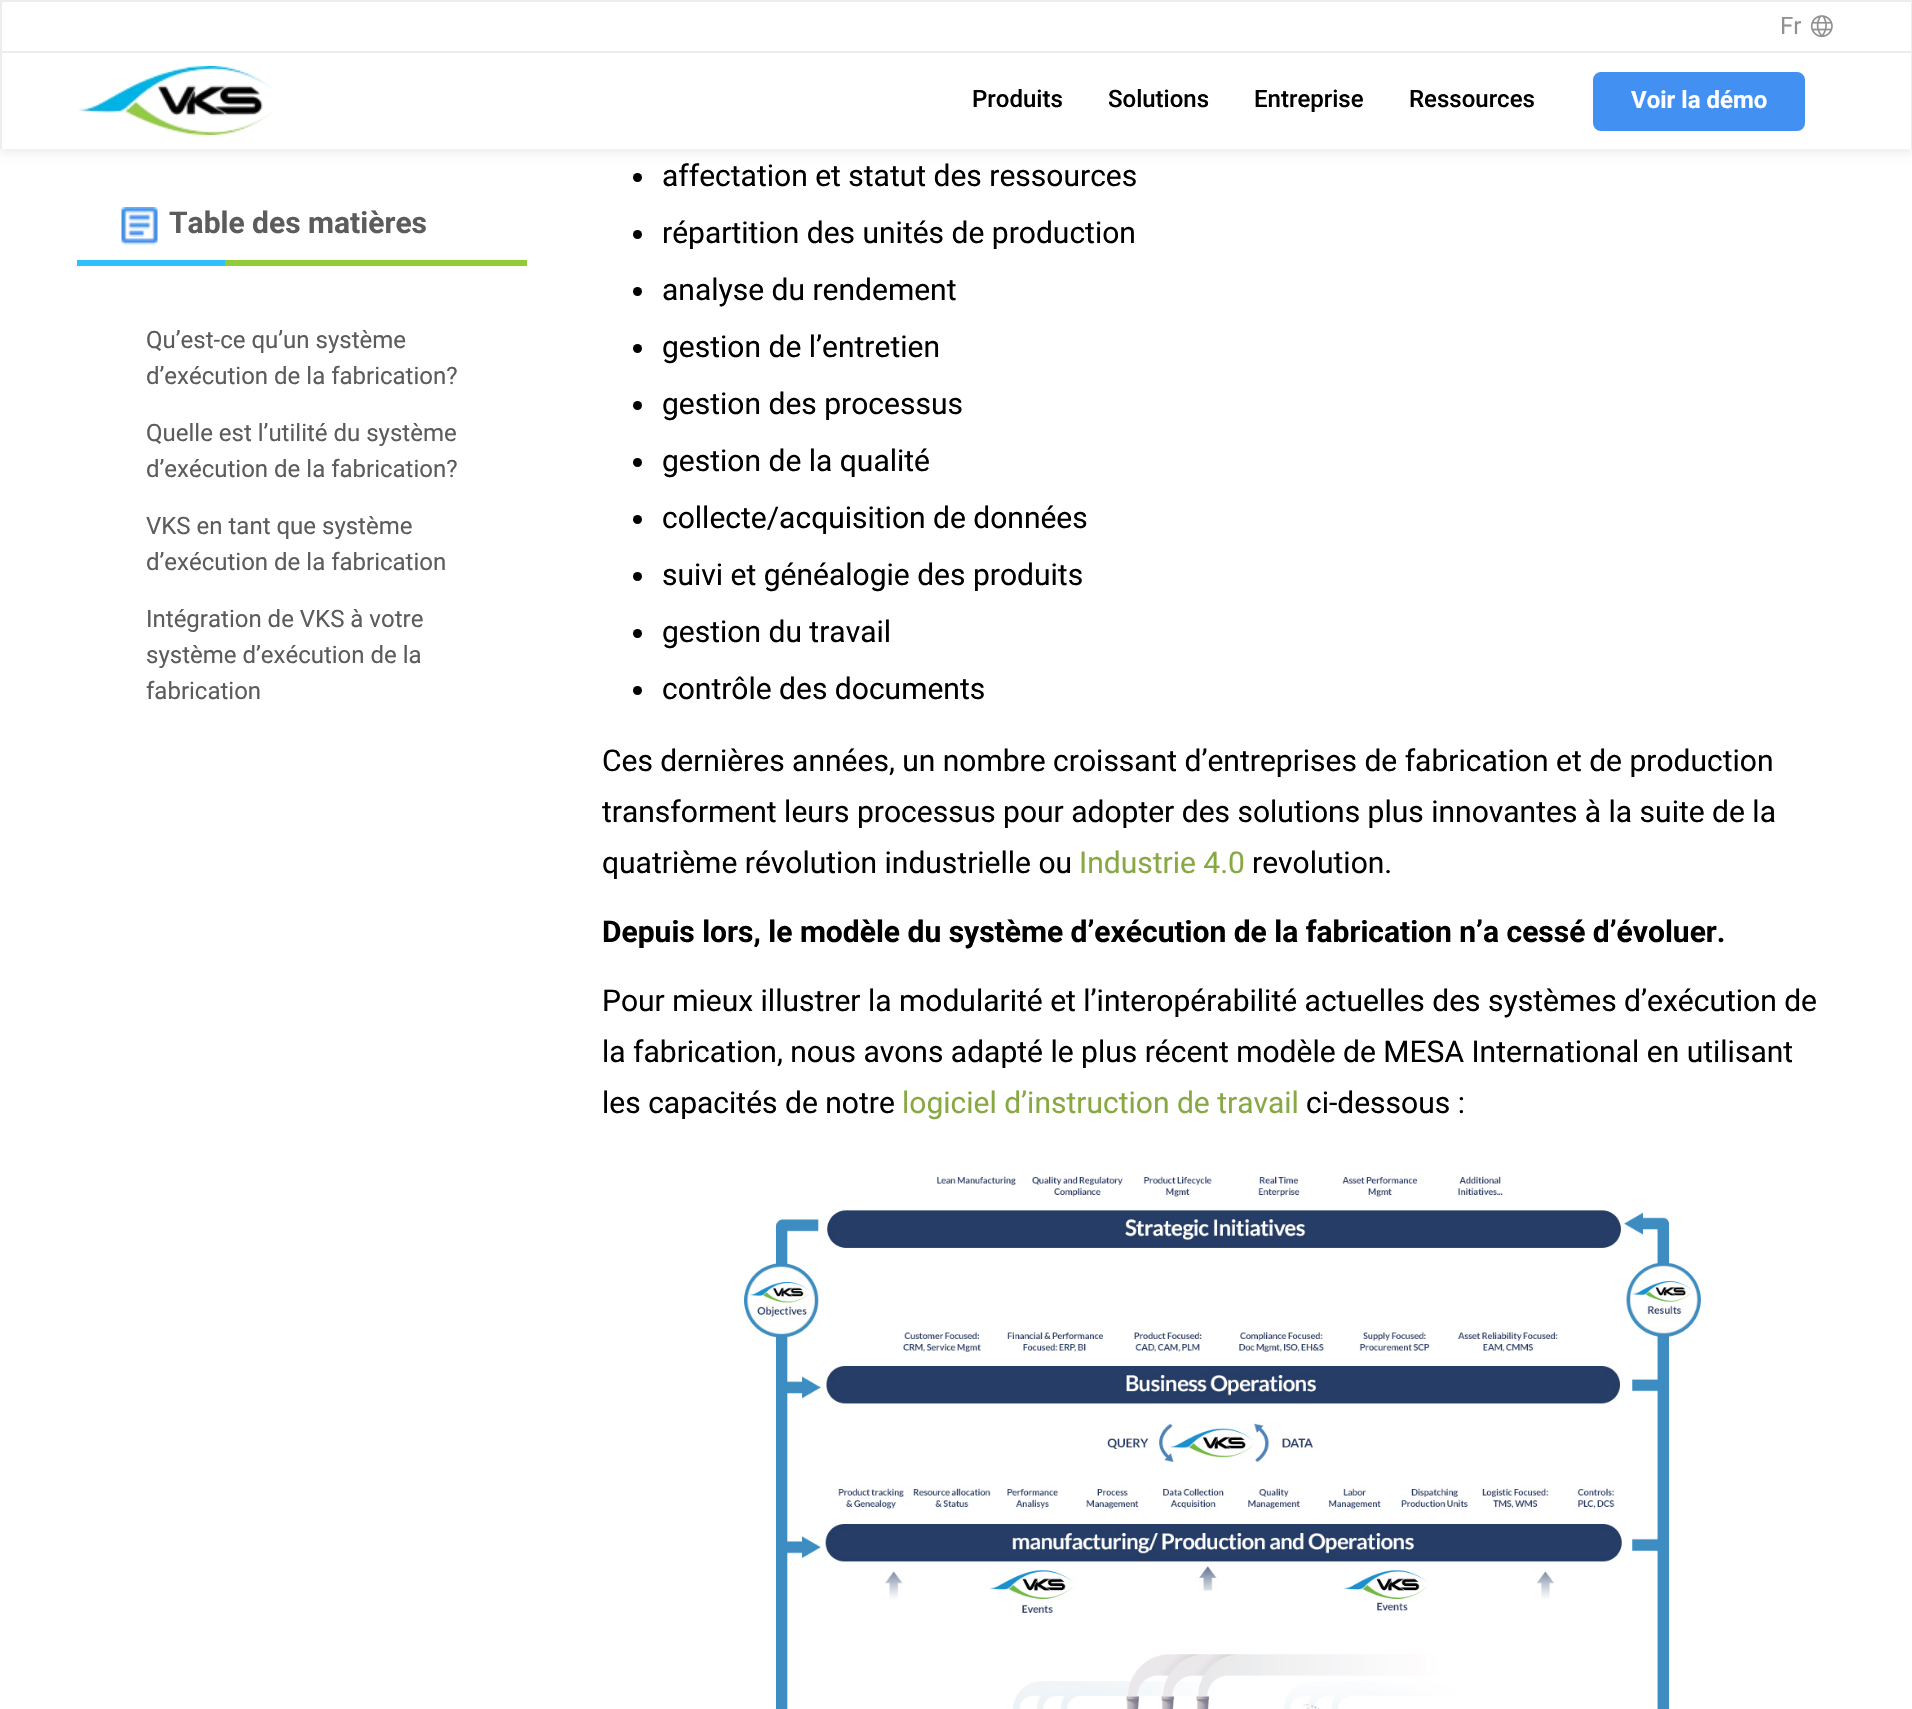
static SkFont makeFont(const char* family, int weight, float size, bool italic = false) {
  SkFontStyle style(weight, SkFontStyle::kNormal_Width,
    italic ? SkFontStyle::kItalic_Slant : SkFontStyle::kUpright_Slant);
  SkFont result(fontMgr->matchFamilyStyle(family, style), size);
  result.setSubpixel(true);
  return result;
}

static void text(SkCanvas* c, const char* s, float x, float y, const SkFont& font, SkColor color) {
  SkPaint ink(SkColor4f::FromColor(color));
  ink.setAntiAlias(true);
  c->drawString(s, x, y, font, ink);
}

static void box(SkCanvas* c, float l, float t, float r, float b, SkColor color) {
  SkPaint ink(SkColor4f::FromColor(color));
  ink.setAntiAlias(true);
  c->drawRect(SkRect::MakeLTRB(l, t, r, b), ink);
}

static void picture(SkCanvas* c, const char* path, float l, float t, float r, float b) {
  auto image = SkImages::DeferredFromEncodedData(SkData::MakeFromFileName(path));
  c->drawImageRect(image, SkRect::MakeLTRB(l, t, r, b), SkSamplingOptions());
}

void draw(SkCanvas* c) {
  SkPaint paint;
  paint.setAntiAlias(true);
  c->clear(0xffffffff);
  paint.setColor(0x12000000);
  paint.setMaskFilter(SkMaskFilter::MakeBlur(kNormal_SkBlurStyle, 4.5f));
  c->drawRect(SkRect::MakeLTRB(0, 5, 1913, 153), paint);
  paint.setMaskFilter(nullptr);
  box(c, 2, 2, 1911, 149, 0xffffffff);
  box(c, 0, 0, 1912, 2, 0xffededed);
  box(c, 1911, 0, 1912, 51, 0xffededed);
  box(c, 0, 0, 2, 51, 0xffededed);
  SkFont face1 = makeFont("Roboto", 400, 24);
  text(c, "Fr", 1780, 34, face1, 0xff919191);
  picture(c, "img_01.png", 1810, 15, 1833, 38);
  box(c, 0, 51, 1912, 53, 0xffededed);
  box(c, 1911, 51, 1912, 149, 0xffededed);
  box(c, 0, 51, 2, 149, 0xffededed);
  picture(c, "img_02.png", 78, 66, 274, 135);
  SkFont face2 = makeFont("Roboto", 500, 24);
  text(c, "Produits", 972, 107, face2, 0xff000000);
  text(c, "Solutions", 1108, 107, face2, 0xff000000);
  text(c, "Entreprise", 1254, 107, face2, 0xff000000);
  text(c, "Ressources", 1409, 107, face2, 0xff000000);
  paint.setColor(0xff4190f2);
  c->drawRoundRect(SkRect::MakeLTRB(1594, 73, 1804, 130), 7, 7, paint);
  paint.setStyle(SkPaint::kStroke_Style);
  paint.setStrokeWidth(2);
  c->drawRoundRect(SkRect::MakeLTRB(1594, 73, 1804, 130), 7, 7, paint);
  SkFont face3 = makeFont("Roboto", 700, 24);
  text(c, "Voir la démo", 1631, 108, face3, 0xffffffff);
  picture(c, "img_03.png", 121, 207, 158, 245);
  SkFont face4 = makeFont("Roboto", 700, 30);
  text(c, "Table des matières", 169, 233, face4, 0xff5c5c5c);
  box(c, 77, 260, 225, 266, 0xff2ec0fc);
  box(c, 225, 260, 527, 266, 0xff91cb36);
  text(c, "Qu’est-ce qu’un système", 146, 348, face1, 0xff5c5c5c);
  text(c, "d’exécution de la fabrication?", 146, 384, face1, 0xff5c5c5c);
  text(c, "Quelle est l’utilité du système", 146, 441, face1, 0xff5c5c5c);
  text(c, "d’exécution de la fabrication?", 146, 477, face1, 0xff5c5c5c);
  text(c, "VKS en tant que système", 146, 534, face1, 0xff5c5c5c);
  text(c, "d’exécution de la fabrication", 146, 570, face1, 0xff5c5c5c);
  text(c, "Intégration de VKS à votre", 146, 627, face1, 0xff5c5c5c);
  text(c, "système d’exécution de la", 146, 663, face1, 0xff5c5c5c);
  text(c, "fabrication", 146, 699, face1, 0xff5c5c5c);
  paint.setStyle(SkPaint::kFill_Style);
  paint.setColor(0xff000000);
  c->drawCircle(637.5f, 177.5f, 4.5f, paint);
  SkFont face5 = makeFont("Roboto", 400, 30);
  text(c, "affectation et statut des ressources", 662, 186, face5, 0xff000000);
  c->drawCircle(637.5f, 234.5f, 4.5f, paint);
  text(c, "répartition des unités de production", 662, 243, face5, 0xff000000);
  c->drawCircle(637.5f, 291.5f, 4.5f, paint);
  text(c, "analyse du rendement", 662, 300, face5, 0xff000000);
  c->drawCircle(637.5f, 348.5f, 4.5f, paint);
  text(c, "gestion de l’entretien", 662, 357, face5, 0xff000000);
  c->drawCircle(637.5f, 405.5f, 4.5f, paint);
  text(c, "gestion des processus", 662, 414, face5, 0xff000000);
  c->drawCircle(637.5f, 462.5f, 4.5f, paint);
  text(c, "gestion de la qualité", 662, 471, face5, 0xff000000);
  c->drawCircle(637.5f, 519.5f, 4.5f, paint);
  text(c, "collecte/acquisition de données", 662, 528, face5, 0xff000000);
  c->drawCircle(637.5f, 576.5f, 4.5f, paint);
  text(c, "suivi et généalogie des produits", 662, 585, face5, 0xff000000);
  c->drawCircle(637.5f, 633.5f, 4.5f, paint);
  text(c, "gestion du travail", 662, 642, face5, 0xff000000);
  c->drawCircle(637.5f, 690.5f, 4.5f, paint);
  text(c, "contrôle des documents", 662, 699, face5, 0xff000000);
  text(c, "Ces dernières années, un nombre croissant d’entreprises de fabrication et de production", 602, 771, face5, 0xff000000);
  text(c, "transforment leurs processus pour adopter des solutions plus innovantes à la suite de la", 602, 822, face5, 0xff000000);
  text(c, "quatrième révolution industrielle ou", 602, 873, face5, 0xff000000);
  text(c, "Industrie 4.0", 1079, 873, face5, 0xff88a844);
  text(c, "revolution.", 1252, 873, face5, 0xff000000);
  text(c, "Depuis lors, le modèle du système d’exécution de la fabrication n’a cessé d’évoluer.", 602, 942, face4, 0xff000000);
  text(c, "Pour mieux illustrer la modularité et l’interopérabilité actuelles des systèmes d’exécution de", 602, 1011, face5, 0xff000000);
  text(c, "la fabrication, nous avons adapté le plus récent modèle de MESA International en utilisant", 602, 1062, face5, 0xff000000);
  text(c, "les capacités de notre", 602, 1113, face5, 0xff000000);
  text(c, "logiciel d’instruction de travail", 902, 1113, face5, 0xff88a844);
  text(c, "ci-dessous :", 1306, 1113, face5, 0xff000000);
  picture(c, "img_04.png", 744, 1176, 1701, 1709);
}
